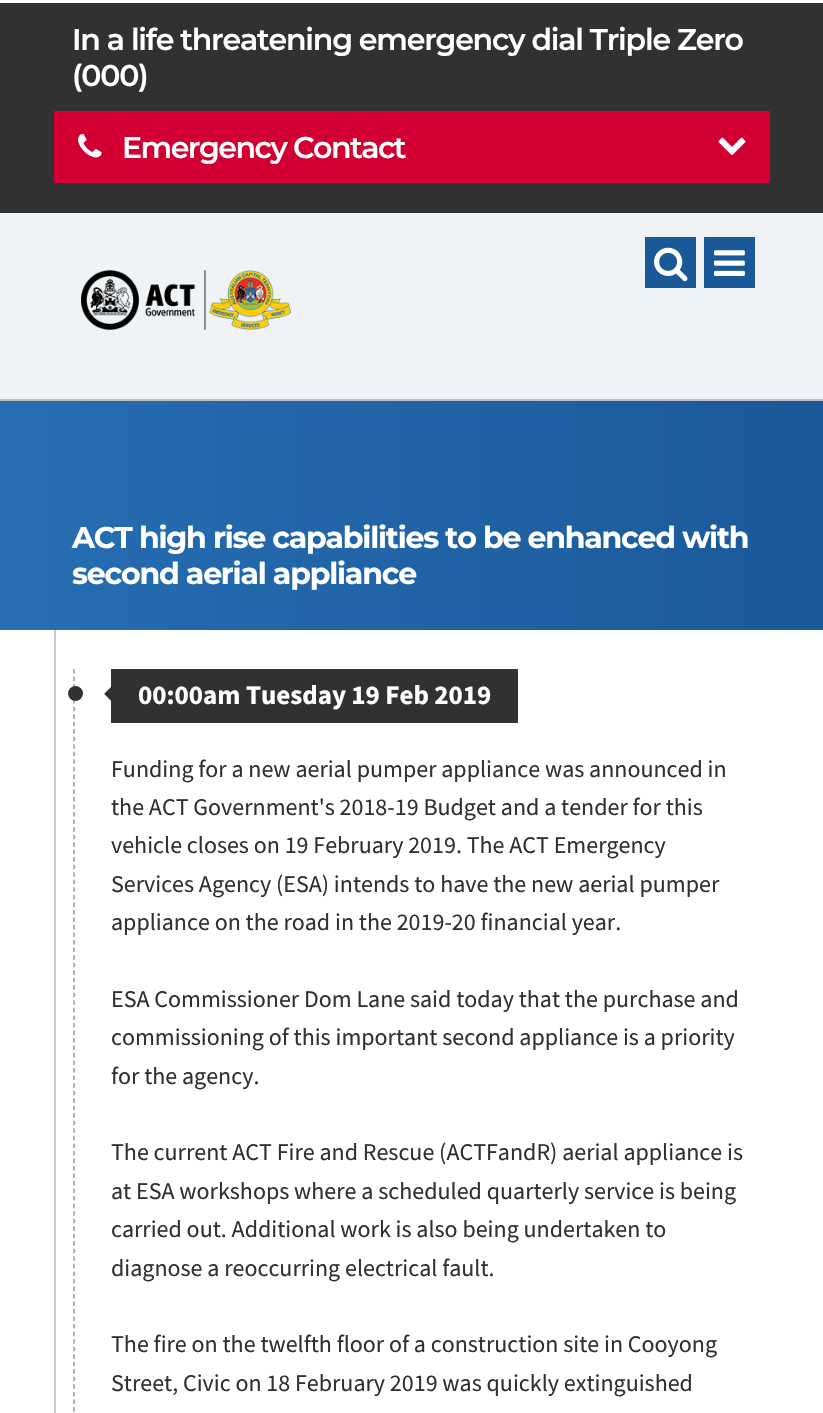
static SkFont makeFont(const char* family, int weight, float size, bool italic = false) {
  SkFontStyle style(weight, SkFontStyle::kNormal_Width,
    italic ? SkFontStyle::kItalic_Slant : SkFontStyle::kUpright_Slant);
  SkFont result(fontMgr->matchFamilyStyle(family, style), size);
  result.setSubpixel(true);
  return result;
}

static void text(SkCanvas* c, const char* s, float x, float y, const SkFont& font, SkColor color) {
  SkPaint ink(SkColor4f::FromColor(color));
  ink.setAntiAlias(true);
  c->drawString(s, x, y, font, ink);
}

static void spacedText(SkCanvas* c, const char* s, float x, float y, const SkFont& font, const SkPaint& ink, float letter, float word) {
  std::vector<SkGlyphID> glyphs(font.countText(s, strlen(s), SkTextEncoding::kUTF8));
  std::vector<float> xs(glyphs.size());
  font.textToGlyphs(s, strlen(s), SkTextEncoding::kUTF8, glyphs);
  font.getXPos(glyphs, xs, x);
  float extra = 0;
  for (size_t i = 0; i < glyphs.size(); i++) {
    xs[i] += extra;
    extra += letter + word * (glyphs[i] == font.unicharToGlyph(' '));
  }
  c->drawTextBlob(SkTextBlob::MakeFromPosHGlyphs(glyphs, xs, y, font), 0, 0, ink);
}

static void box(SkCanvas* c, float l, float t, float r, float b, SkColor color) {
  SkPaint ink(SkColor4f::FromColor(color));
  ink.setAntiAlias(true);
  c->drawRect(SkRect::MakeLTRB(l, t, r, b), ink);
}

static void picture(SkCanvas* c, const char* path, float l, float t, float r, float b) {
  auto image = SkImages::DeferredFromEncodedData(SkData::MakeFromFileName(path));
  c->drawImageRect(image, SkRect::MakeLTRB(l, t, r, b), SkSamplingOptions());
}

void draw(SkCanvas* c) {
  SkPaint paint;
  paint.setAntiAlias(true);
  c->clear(0xffffffff);
  box(c, 0, 3, 823, 213, 0xff313131);
  SkFont face1 = makeFont("Montserrat", 600, 30);
  paint.setColor(0xffffffff);
  spacedText(c, "In a life threatening emergency dial Triple Zero", 72, 50, face1, paint, -1.2f, 0);
  spacedText(c, "(000)", 72, 86, face1, paint, -1.2f, 0);
  box(c, 54, 111, 770, 183, 0xffd20032);
  picture(c, "img_01.png", 78, 134, 102, 158);
  spacedText(c, "Emergency Contact", 122, 158, face1, paint, -1.5f, 0);
  picture(c, "img_02.png", 718, 137, 746, 155);
  box(c, 0, 213, 823, 399, 0xfff0f3f5);
  box(c, 0, 399, 823, 401, 0xffc1c1c1);
  box(c, 645, 237, 696, 288, 0xff1a5998);
  picture(c, "img_03.png", 654, 247, 688, 282);
  box(c, 704, 237, 755, 288, 0xff1a5998);
  picture(c, "img_04.png", 714, 250, 745, 276);
  picture(c, "img_05.png", 81, 270, 291, 330);
  {
    const SkColor colors[] = {0xff1a5998, 0xff276eb4};
    const float stops[] = {0, 1};
    const SkPoint ends[] = {{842, 515}, {-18, 515}};
    paint.setShader(SkGradientShader::MakeLinear(ends, colors, stops, 2, SkTileMode::kClamp));
    paint.setAlpha(255);
  }
  c->drawRect(SkRect::MakeLTRB(0, 401, 823, 630), paint);
  SkFont face2 = makeFont("Montserrat", 700, 30);
  paint.setShader(nullptr);
  paint.setColor(0xffffffff);
  spacedText(c, "ACT high rise capabilities to be enhanced with", 72, 548, face2, paint, -1.2f, 0);
  spacedText(c, "second aerial appliance", 72, 584, face2, paint, -1.2f, 0);
  box(c, 54, 630, 56, 1413, 0xffcbcbcb);
  paint.setStyle(SkPaint::kStroke_Style);
  paint.setStrokeWidth(1.5f);
  paint.setColor(0xff989898);
  paint.setPathEffect(SkDashPathEffect::Make({{4.5f, 3.03f}}, 0));
  c->drawPath(SkPathBuilder().moveTo(74, 669).lineTo(74, 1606.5f).detach(), paint);
  paint.setPathEffect(nullptr);
  paint.setStyle(SkPaint::kFill_Style);
  paint.setColor(0xff313131);
  c->drawCircle(75.5f, 693.5f, 7.5f, paint);
  box(c, 111, 669, 518, 723, 0xff313131);
  picture(c, "img_06.png", 104, 687, 111, 701);
  SkFont face3 = makeFont("Source Sans Pro", 700, 27);
  text(c, "00:00am Tuesday 19 Feb 2019", 138, 704, face3, 0xffffffff);
  SkFont face4 = makeFont("Source Sans Pro", 400, 24);
  text(c, "Funding for a new aerial pumper appliance was announced in", 111, 777, face4, 0xff313131);
  text(c, "the ACT Government's 2018-19 Budget and a tender for this", 111, 815, face4, 0xff313131);
  text(c, "vehicle closes on 19 February 2019. The ACT Emergency", 111, 853, face4, 0xff313131);
  text(c, "Services Agency (ESA) intends to have the new aerial pumper", 111, 892, face4, 0xff313131);
  text(c, "appliance on the road in the 2019-20 financial year.", 111, 930, face4, 0xff313131);
  text(c, "ESA Commissioner Dom Lane said today that the purchase and", 111, 1007, face4, 0xff313131);
  text(c, "commissioning of this important second appliance is a priority", 111, 1045, face4, 0xff313131);
  text(c, "for the agency.", 111, 1084, face4, 0xff313131);
  text(c, "The current ACT Fire and Rescue (ACTFandR) aerial appliance is", 111, 1160, face4, 0xff313131);
  text(c, "at ESA workshops where a scheduled quarterly service is being", 111, 1199, face4, 0xff313131);
  text(c, "carried out. Additional work is also being undertaken to", 111, 1237, face4, 0xff313131);
  text(c, "diagnose a reoccurring electrical fault.", 111, 1276, face4, 0xff313131);
  text(c, "The fire on the twelfth floor of a construction site in Cooyong", 111, 1352, face4, 0xff313131);
  text(c, "Street, Civic on 18 February 2019 was quickly extinguished", 111, 1391, face4, 0xff313131);
}
